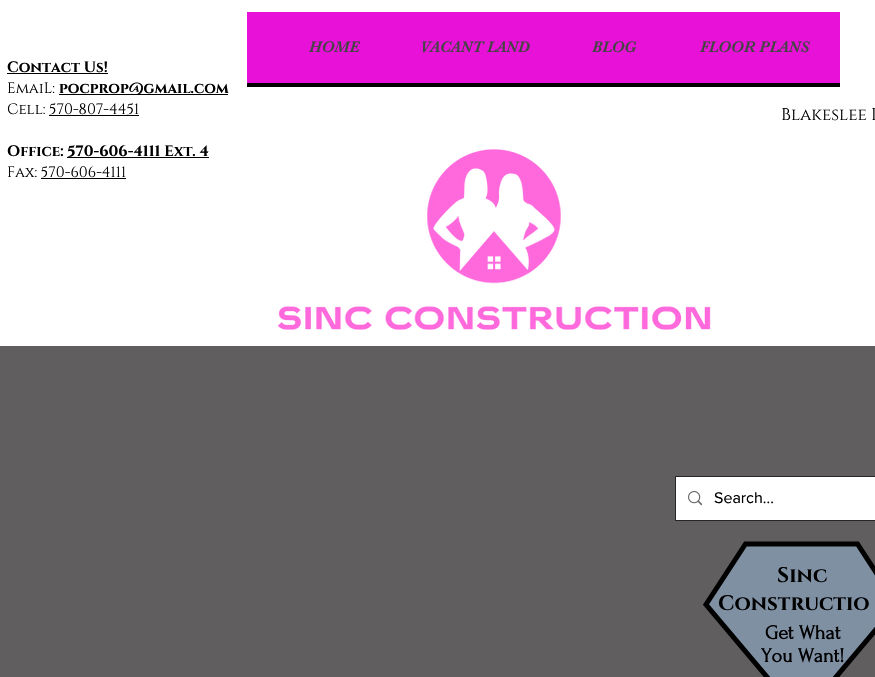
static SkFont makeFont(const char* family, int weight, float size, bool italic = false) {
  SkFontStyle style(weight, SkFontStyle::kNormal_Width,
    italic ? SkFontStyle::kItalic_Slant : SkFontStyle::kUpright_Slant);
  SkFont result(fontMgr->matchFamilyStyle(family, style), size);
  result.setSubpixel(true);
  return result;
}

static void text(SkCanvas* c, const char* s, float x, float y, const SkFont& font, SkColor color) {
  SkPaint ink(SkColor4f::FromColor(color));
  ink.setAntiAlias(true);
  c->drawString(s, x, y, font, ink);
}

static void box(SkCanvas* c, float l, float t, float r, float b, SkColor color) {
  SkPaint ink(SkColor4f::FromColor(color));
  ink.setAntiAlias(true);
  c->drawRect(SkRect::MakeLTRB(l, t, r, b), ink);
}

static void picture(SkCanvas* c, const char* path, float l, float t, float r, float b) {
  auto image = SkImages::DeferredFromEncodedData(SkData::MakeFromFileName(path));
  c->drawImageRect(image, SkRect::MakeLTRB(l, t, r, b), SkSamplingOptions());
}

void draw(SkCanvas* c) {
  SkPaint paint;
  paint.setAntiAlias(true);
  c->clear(0xffffffff);
  box(c, 247, 83, 840, 87, 0xff000000);
  box(c, 247, 12, 840, 83, 0xffe811d8);
  SkFont face1 = makeFont("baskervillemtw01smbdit", 400, 16);
  text(c, "HOME", 309, 52, face1, 0xff444444);
  text(c, "VACANT LAND", 420, 52, face1, 0xff444444);
  text(c, "BLOG", 592, 52, face1, 0xff444444);
  text(c, "FLOOR PLANS", 700, 52, face1, 0xff444444);
  SkFont face2 = makeFont("Cinzel", 700, 15);
  text(c, "Contact Us!", 7, 72, face2, 0xff000000);
  box(c, 7, 73, 108, 74, 0xff000000);
  SkFont face3 = makeFont("Cinzel", 400, 15);
  text(c, "EmaiL:", 7, 93, face3, 0xff000000);
  box(c, 59, 94, 228, 95, 0xff000000);
  text(c, "pocprop@gmail.com", 59, 93, face2, 0xff000000);
  text(c, "Cell: 570-807-4451", 7, 114, face3, 0xff000000);
  box(c, 49, 115, 139, 116, 0xff000000);
  text(c, "Office: 570-606-4111 Ext. 4", 7, 156, face2, 0xff000000);
  box(c, 67, 157, 209, 158, 0xff000000);
  text(c, "Fax: 570-606-4111", 7, 177, face3, 0xff000000);
  box(c, 41, 178, 126, 179, 0xff000000);
  SkFont face4 = makeFont("Cinzel", 400, 17);
  text(c, "Blakeslee P", 781, 120, face4, 0xff000000);
  picture(c, "img_01.png", 278, 149, 711, 330);
  box(c, 0, 346, 875, 677, 0xff605e5e);
  paint.setStyle(SkPaint::kStroke_Style);
  paint.setStrokeWidth(1);
  paint.setColor(0xff262626);
  c->drawRect(SkRect::MakeLTRB(675.5f, 476.5f, 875.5f, 520.5f), paint);
  box(c, 676, 477, 875, 520, 0xffffffff);
  picture(c, "img_02.png", 688, 491, 702, 506);
  SkFont face5 = makeFont("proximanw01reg", 400, 16);
  text(c, "Search...", 714, 503, face5, 0xff000000);
  paint.setStyle(SkPaint::kFill_Style);
  paint.setColor(0xff8090a3);
  c->drawPath(SkPathBuilder().moveTo(857, 544).lineTo(746, 544).lineTo(706, 604).lineTo(802, 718).lineTo(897, 604).close().detach(), paint);
  paint.setStyle(SkPaint::kStroke_Style);
  paint.setStrokeWidth(5);
  paint.setColor(0xff000000);
  c->drawPath(SkPathBuilder().moveTo(857.5f, 544).lineTo(745.5f, 544).lineTo(706, 604.5f).lineTo(801.5f, 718).lineTo(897, 604.5f).close().detach(), paint);
  SkFont face6 = makeFont("Cinzel", 700, 21);
  text(c, "Sinc", 777, 582, face6, 0xff000000);
  text(c, "Constructio", 718, 610, face6, 0xff000000);
  SkFont face7 = makeFont("Forum", 700, 20);
  text(c, "Get What", 765, 639, face7, 0xff000000);
  text(c, "You Want!", 761, 662, face7, 0xff000000);
}
